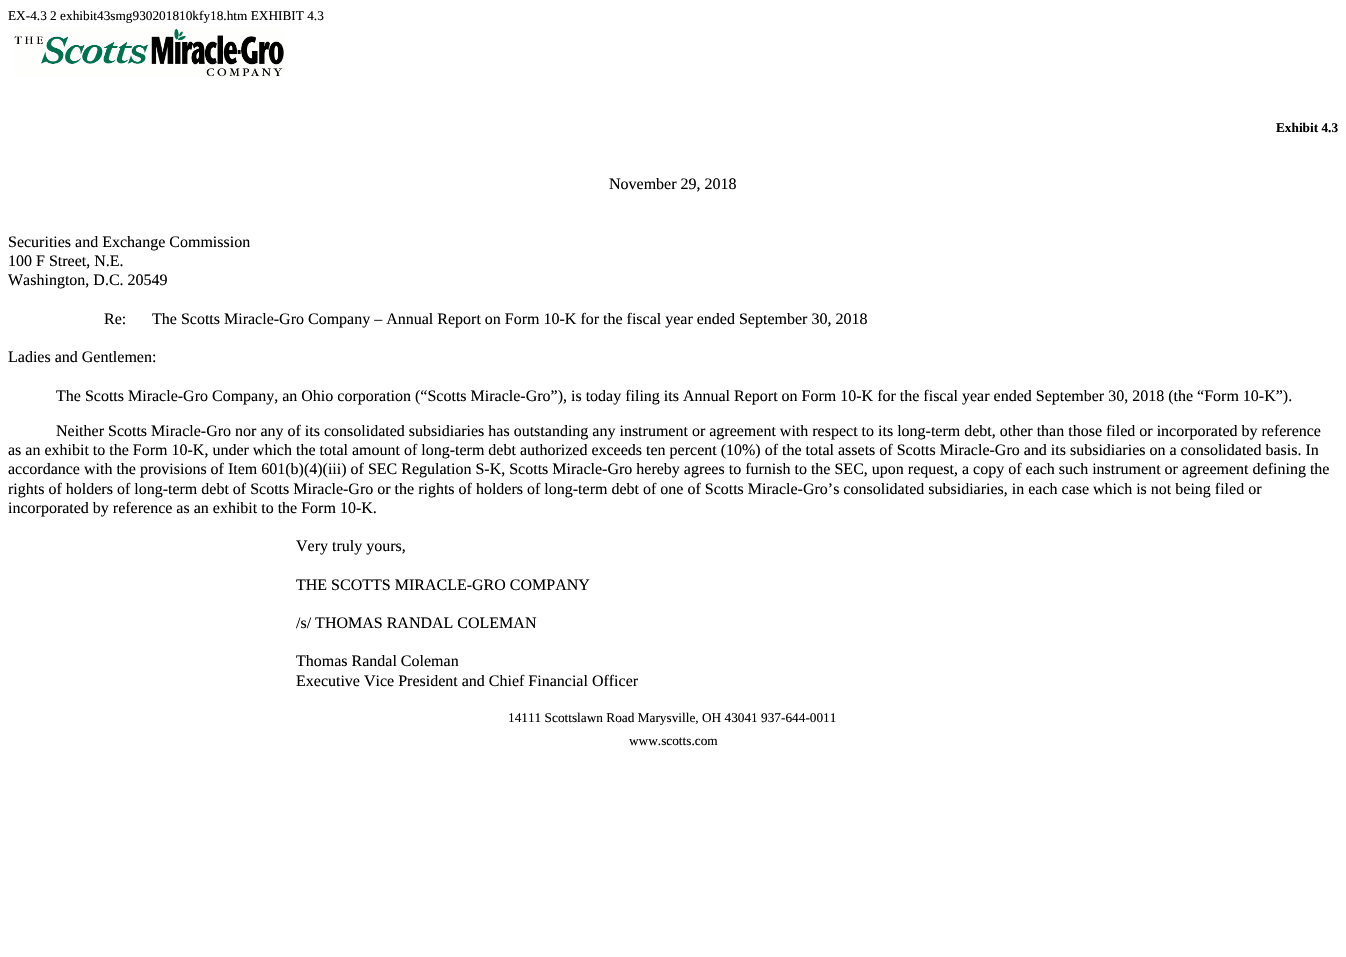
static SkFont makeFont(const char* family, int weight, float size, bool italic = false) {
  SkFontStyle style(weight, SkFontStyle::kNormal_Width,
    italic ? SkFontStyle::kItalic_Slant : SkFontStyle::kUpright_Slant);
  SkFont result(fontMgr->matchFamilyStyle(family, style), size);
  result.setSubpixel(true);
  return result;
}

static void text(SkCanvas* c, const char* s, float x, float y, const SkFont& font, SkColor color) {
  SkPaint ink(SkColor4f::FromColor(color));
  ink.setAntiAlias(true);
  c->drawString(s, x, y, font, ink);
}

static void picture(SkCanvas* c, const char* path, float l, float t, float r, float b) {
  auto image = SkImages::DeferredFromEncodedData(SkData::MakeFromFileName(path));
  c->drawImageRect(image, SkRect::MakeLTRB(l, t, r, b), SkSamplingOptions());
}

void draw(SkCanvas* c) {
  SkPaint paint;
  paint.setAntiAlias(true);
  c->clear(0xffffffff);
  SkFont face1 = makeFont("Liberation Serif", 400, 13.3f);
  text(c, "EX-4.3 2 exhibit43smg930201810kfy18.htm EXHIBIT 4.3", 8, 20, face1, 0xff000000);
  picture(c, "img_01.png", 14, 28, 284, 77);
  SkFont face2 = makeFont("Liberation Serif", 700, 13.3f);
  text(c, "Exhibit 4.3", 1276, 132, face2, 0xff000000);
  SkFont face3 = makeFont("Liberation Serif", 400, 16);
  text(c, "November 29, 2018", 609, 189, face3, 0xff000000);
  text(c, "Securities and Exchange Commission", 8, 247, face3, 0xff000000);
  text(c, "100 F Street, N.E.", 8, 266, face3, 0xff000000);
  text(c, "Washington, D.C. 20549", 8, 285, face3, 0xff000000);
  text(c, "Re:", 104, 324, face3, 0xff000000);
  text(c, "The Scotts Miracle-Gro Company – Annual Report on Form 10-K for the fiscal year ended September 30, 2018", 152, 324, face3, 0xff000000);
  text(c, "Ladies and Gentlemen:", 8, 362, face3, 0xff000000);
  text(c, "The Scotts Miracle-Gro Company, an Ohio corporation (“Scotts Miracle-Gro”), is today filing its Annual Report on Form 10-K for the fiscal year ended September 30, 2018 (the “Form 10-K”).", 56, 401, face3, 0xff000000);
  text(c, "Neither Scotts Miracle-Gro nor any of its consolidated subsidiaries has outstanding any instrument or agreement with respect to its long-term debt, other than those filed or incorporated by reference", 56, 436, face3, 0xff000000);
  text(c, "as an exhibit to the Form 10-K, under which the total amount of long-term debt authorized exceeds ten percent (10%) of the total assets of Scotts Miracle-Gro and its subsidiaries on a consolidated basis. In", 8, 455, face3, 0xff000000);
  text(c, "accordance with the provisions of Item 601(b)(4)(iii) of SEC Regulation S-K, Scotts Miracle-Gro hereby agrees to furnish to the SEC, upon request, a copy of each such instrument or agreement defining the", 8, 474, face3, 0xff000000);
  text(c, "rights of holders of long-term debt of Scotts Miracle-Gro or the rights of holders of long-term debt of one of Scotts Miracle-Gro’s consolidated subsidiaries, in each case which is not being filed or", 8, 494, face3, 0xff000000);
  text(c, "incorporated by reference as an exhibit to the Form 10-K.", 8, 513, face3, 0xff000000);
  text(c, "Very truly yours,", 296, 551, face3, 0xff000000);
  text(c, "THE SCOTTS MIRACLE-GRO COMPANY", 296, 590, face3, 0xff000000);
  text(c, "/s/ THOMAS RANDAL COLEMAN", 296, 628, face3, 0xff000000);
  text(c, "Thomas Randal Coleman", 296, 666, face3, 0xff000000);
  text(c, "Executive Vice President and Chief Financial Officer", 296, 686, face3, 0xff000000);
  text(c, "14111 Scottslawn Road Marysville, OH 43041 937-644-0011", 508, 722, face1, 0xff000000);
  text(c, "www.scotts.com", 629, 745, face1, 0xff000000);
}
